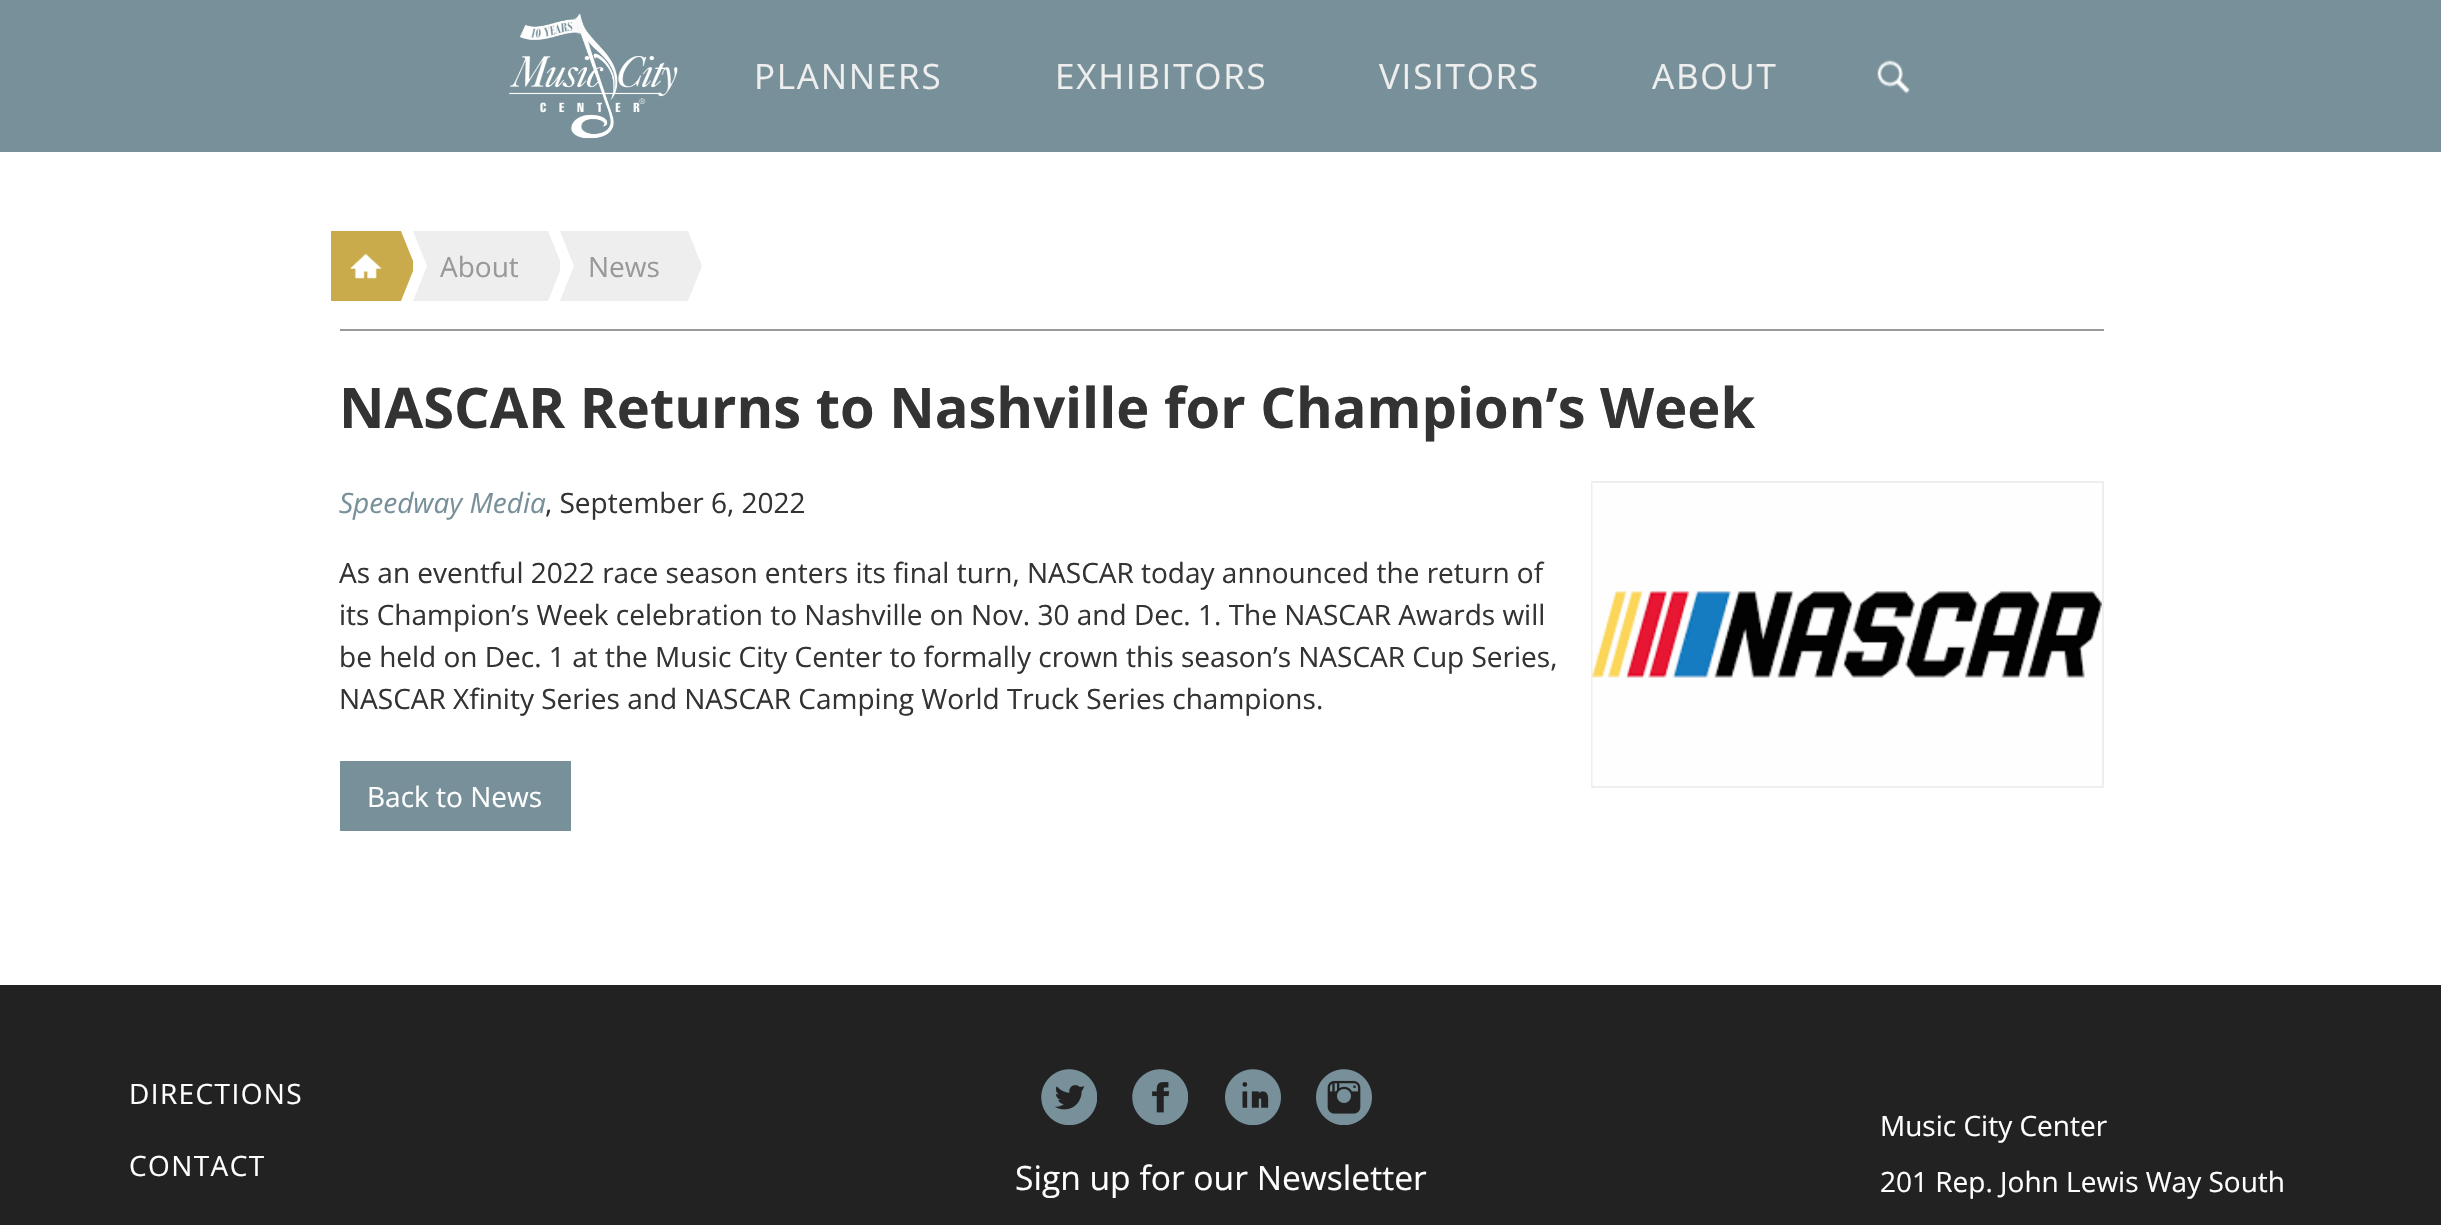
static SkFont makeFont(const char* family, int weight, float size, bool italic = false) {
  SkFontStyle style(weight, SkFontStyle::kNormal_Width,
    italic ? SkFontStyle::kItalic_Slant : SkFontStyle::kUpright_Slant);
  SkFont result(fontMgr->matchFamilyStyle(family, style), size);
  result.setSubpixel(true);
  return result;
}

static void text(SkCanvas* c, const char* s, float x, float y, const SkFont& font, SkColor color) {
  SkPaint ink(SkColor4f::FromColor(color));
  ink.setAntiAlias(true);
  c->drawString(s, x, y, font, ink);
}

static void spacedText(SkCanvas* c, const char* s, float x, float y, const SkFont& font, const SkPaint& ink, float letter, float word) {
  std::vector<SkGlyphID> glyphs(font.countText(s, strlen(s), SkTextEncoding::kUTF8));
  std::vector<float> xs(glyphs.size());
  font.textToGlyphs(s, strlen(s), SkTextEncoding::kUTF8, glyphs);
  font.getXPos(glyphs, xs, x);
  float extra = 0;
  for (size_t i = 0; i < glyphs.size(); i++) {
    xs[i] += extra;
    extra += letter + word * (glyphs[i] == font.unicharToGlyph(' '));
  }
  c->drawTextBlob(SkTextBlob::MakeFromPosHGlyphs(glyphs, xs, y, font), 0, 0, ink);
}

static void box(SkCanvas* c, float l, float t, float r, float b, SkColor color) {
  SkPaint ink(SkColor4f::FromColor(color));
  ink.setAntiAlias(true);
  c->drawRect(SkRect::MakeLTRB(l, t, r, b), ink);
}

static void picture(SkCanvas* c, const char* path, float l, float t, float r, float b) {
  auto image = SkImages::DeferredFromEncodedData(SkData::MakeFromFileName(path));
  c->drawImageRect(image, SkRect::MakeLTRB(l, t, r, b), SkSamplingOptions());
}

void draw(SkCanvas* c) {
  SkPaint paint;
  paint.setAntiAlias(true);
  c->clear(0xffffffff);
  box(c, 0, 0, 2441, 152, 0xff779099);
  picture(c, "img_01.png", 509, 14, 678, 139);
  SkFont face1 = makeFont("Open Sans", 400, 35);
  paint.setColor(0xffeeeeee);
  spacedText(c, "PLANNERS", 754, 89, face1, paint, 1.75f, 0);
  spacedText(c, "EXHIBITORS", 1055, 89, face1, paint, 1.75f, 0);
  spacedText(c, "VISITORS", 1379, 89, face1, paint, 1.75f, 0);
  spacedText(c, "ABOUT", 1652, 89, face1, paint, 1.75f, 0);
  picture(c, "img_02.png", 1877, 60, 1910, 94);
  box(c, 340, 329, 2104, 331, 0xff999999);
  box(c, 331, 231, 401, 301, 0xffc9ab4b);
  picture(c, "img_03.png", 350, 253, 382, 279);
  paint.setColor(0xffc9ab4b);
  c->drawPath(SkPathBuilder().moveTo(401, 301).lineTo(401, 231).lineTo(415, 266).close().detach(), paint);
  box(c, 413, 231, 548, 301, 0xffeeeeee);
  paint.setColor(0xffffffff);
  c->drawPath(SkPathBuilder().moveTo(413, 301).lineTo(413, 231).lineTo(427, 266).close().detach(), paint);
  SkFont face2 = makeFont("Open Sans", 400, 28);
  text(c, "About", 440, 277, face2, 0xff999999);
  paint.setColor(0xffeeeeee);
  c->drawPath(SkPathBuilder().moveTo(548, 301).lineTo(548, 231).lineTo(562, 266).close().detach(), paint);
  box(c, 560, 231, 688, 301, 0xffeeeeee);
  paint.setColor(0xffffffff);
  c->drawPath(SkPathBuilder().moveTo(560, 301).lineTo(560, 231).lineTo(574, 266).close().detach(), paint);
  text(c, "News", 588, 277, face2, 0xff999999);
  paint.setColor(0xffeeeeee);
  c->drawPath(SkPathBuilder().moveTo(688, 301).lineTo(688, 231).lineTo(702, 266).close().detach(), paint);
  SkFont face3 = makeFont("Open Sans", 700, 56);
  text(c, "NASCAR Returns to Nashville for Champion’s Week", 339, 428, face3, 0xff333333);
  SkFont face4 = makeFont("Open Sans", 400, 28, true);
  text(c, "Speedway Media", 339, 513, face4, 0xff779099);
  text(c, ", September 6, 2022", 545, 513, face2, 0xff333333);
  text(c, "As an eventful 2022 race season enters its final turn, NASCAR today announced the return of", 339, 583, face2, 0xff333333);
  text(c, "its Champion’s Week celebration to Nashville on Nov. 30 and Dec. 1. The NASCAR Awards will", 339, 625, face2, 0xff333333);
  text(c, "be held on Dec. 1 at the Music City Center to formally crown this season’s NASCAR Cup Series,", 339, 667, face2, 0xff333333);
  text(c, "NASCAR Xfinity Series and NASCAR Camping World Truck Series champions.", 339, 709, face2, 0xff333333);
  paint.setStyle(SkPaint::kStroke_Style);
  paint.setStrokeWidth(2);
  c->drawRect(SkRect::MakeLTRB(1592, 482, 2103, 787), paint);
  picture(c, "img_04.png", 1592, 483, 2102, 786);
  box(c, 340, 761, 571, 831, 0xff779099);
  text(c, "Back to News", 367, 807, face2, 0xffffffff);
  box(c, 0, 985, 2441, 1225, 0xff222222);
  paint.setStyle(SkPaint::kFill_Style);
  paint.setColor(0xffffffff);
  spacedText(c, "DIRECTIONS", 129, 1104, face2, paint, 1.4f, 0);
  spacedText(c, "CONTACT", 129, 1176, face2, paint, 1.4f, 0);
  picture(c, "img_05.png", 1041, 1069, 1097, 1125);
  picture(c, "img_06.png", 1132, 1069, 1188, 1125);
  picture(c, "img_07.png", 1225, 1069, 1281, 1125);
  picture(c, "img_08.png", 1316, 1069, 1372, 1125);
  SkFont face5 = makeFont("Open Sans", 400, 33.6f);
  text(c, "Sign up for our Newsletter", 1015, 1190, face5, 0xffffffff);
  text(c, "Music City Center", 1880, 1136, face2, 0xffffffff);
  text(c, "201 Rep. John Lewis Way South", 1880, 1192, face2, 0xffffffff);
}
